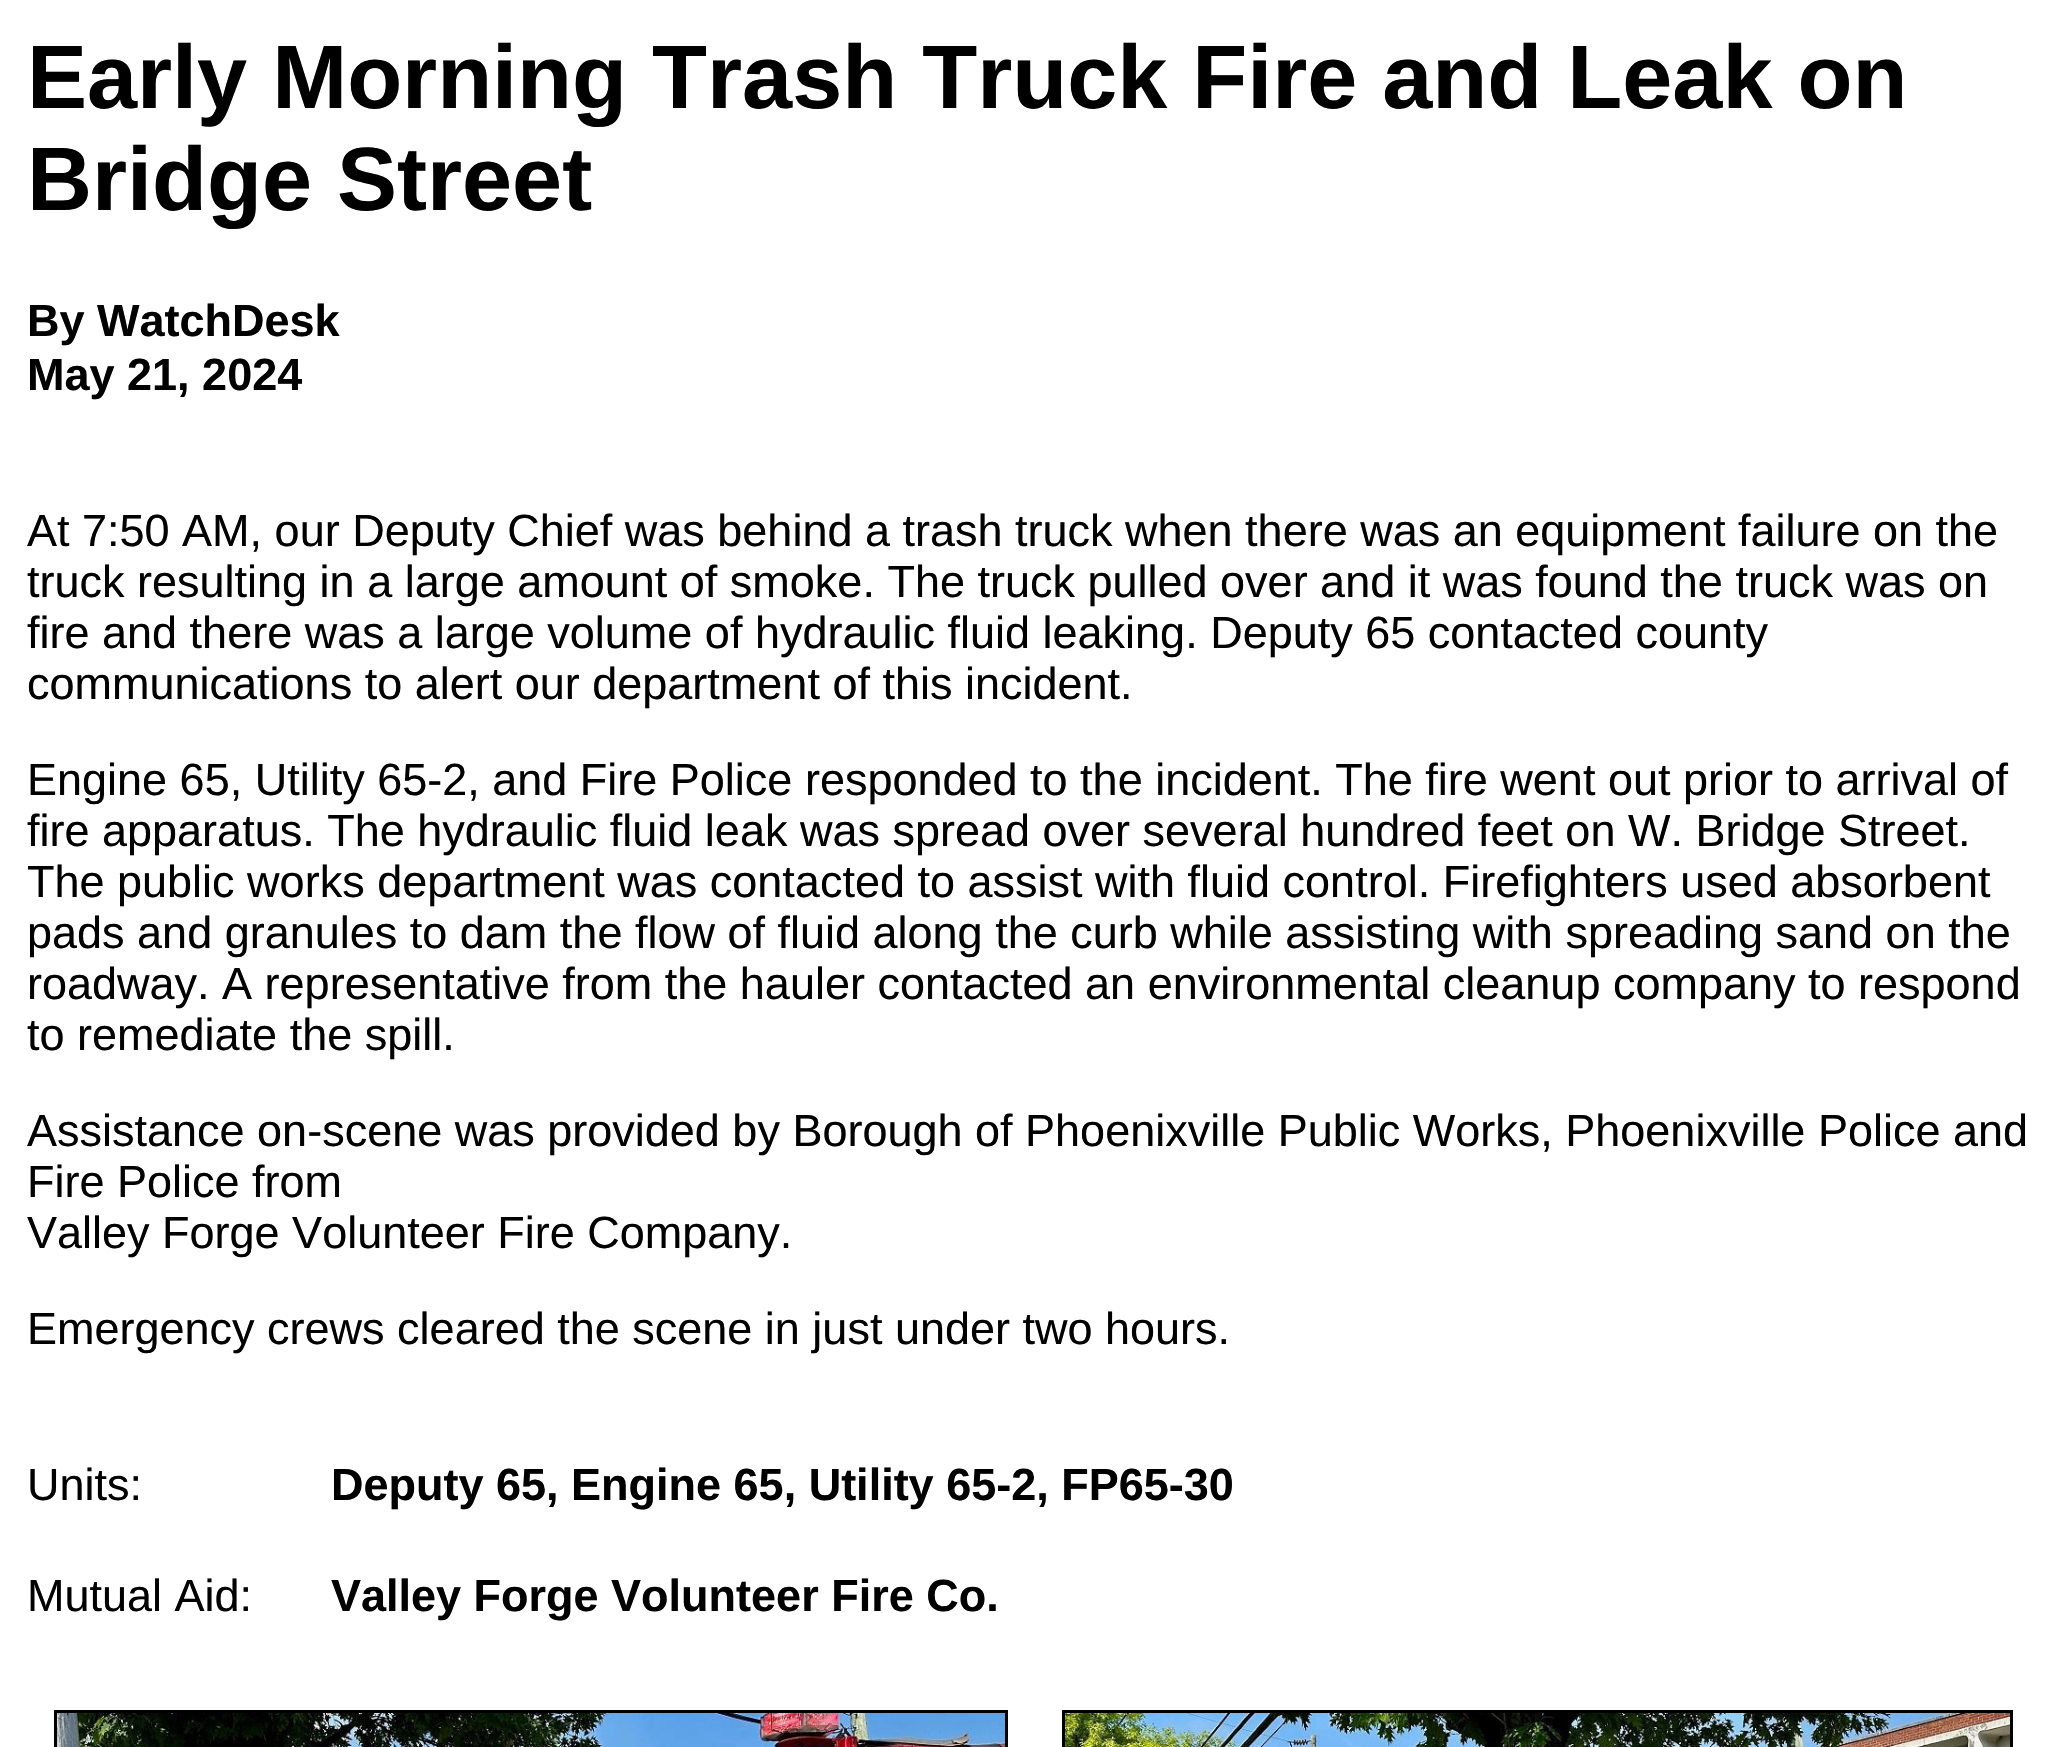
static SkFont makeFont(const char* family, int weight, float size, bool italic = false) {
  SkFontStyle style(weight, SkFontStyle::kNormal_Width,
    italic ? SkFontStyle::kItalic_Slant : SkFontStyle::kUpright_Slant);
  SkFont result(fontMgr->matchFamilyStyle(family, style), size);
  result.setSubpixel(true);
  return result;
}

static void text(SkCanvas* c, const char* s, float x, float y, const SkFont& font, SkColor color) {
  SkPaint ink(SkColor4f::FromColor(color));
  ink.setAntiAlias(true);
  c->drawString(s, x, y, font, ink);
}

static void picture(SkCanvas* c, const char* path, float l, float t, float r, float b) {
  auto image = SkImages::DeferredFromEncodedData(SkData::MakeFromFileName(path));
  c->drawImageRect(image, SkRect::MakeLTRB(l, t, r, b), SkSamplingOptions());
}

void draw(SkCanvas* c) {
  SkPaint paint;
  paint.setAntiAlias(true);
  c->clear(0xffffffff);
  SkFont face1 = makeFont("Liberation Sans", 700, 90);
  text(c, "Early Morning Trash Truck Fire and Leak on", 27, 108, face1, 0xff000000);
  text(c, "Bridge Street", 27, 210, face1, 0xff000000);
  SkFont face2 = makeFont("Liberation Sans", 700, 45);
  text(c, "By WatchDesk", 27, 336, face2, 0xff000000);
  text(c, "May 21, 2024", 27, 390, face2, 0xff000000);
  SkFont face3 = makeFont("Liberation Sans", 400, 45);
  text(c, "At 7:50 AM, our Deputy Chief was behind a trash truck when there was an equipment failure on the", 27, 546, face3, 0xff000000);
  text(c, "truck resulting in a large amount of smoke. The truck pulled over and it was found the truck was on", 27, 597, face3, 0xff000000);
  text(c, "fire and there was a large volume of hydraulic fluid leaking. Deputy 65 contacted county", 27, 648, face3, 0xff000000);
  text(c, "communications to alert our department of this incident.", 27, 699, face3, 0xff000000);
  text(c, "Engine 65, Utility 65-2, and Fire Police responded to the incident. The fire went out prior to arrival of", 27, 795, face3, 0xff000000);
  text(c, "fire apparatus. The hydraulic fluid leak was spread over several hundred feet on W. Bridge Street.", 27, 846, face3, 0xff000000);
  text(c, "The public works department was contacted to assist with fluid control. Firefighters used absorbent", 27, 897, face3, 0xff000000);
  text(c, "pads and granules to dam the flow of fluid along the curb while assisting with spreading sand on the", 27, 948, face3, 0xff000000);
  text(c, "roadway. A representative from the hauler contacted an environmental cleanup company to respond", 27, 999, face3, 0xff000000);
  text(c, "to remediate the spill.", 27, 1050, face3, 0xff000000);
  text(c, "Assistance on-scene was provided by Borough of Phoenixville Public Works, Phoenixville Police and", 27, 1146, face3, 0xff000000);
  text(c, "Fire Police from", 27, 1197, face3, 0xff000000);
  text(c, "Valley Forge Volunteer Fire Company.", 27, 1248, face3, 0xff000000);
  text(c, "Emergency crews cleared the scene in just under two hours.", 27, 1344, face3, 0xff000000);
  text(c, "Units:", 27, 1500, face3, 0xff000000);
  text(c, "Deputy 65, Engine 65, Utility 65-2, FP65-30", 331, 1500, face2, 0xff000000);
  text(c, "Mutual Aid:", 27, 1611, face3, 0xff000000);
  text(c, "Valley Forge Volunteer Fire Co.", 331, 1611, face2, 0xff000000);
  paint.setStyle(SkPaint::kStroke_Style);
  paint.setStrokeWidth(3);
  paint.setColor(0xff000000);
  c->drawRect(SkRect::MakeLTRB(55.5f, 1711.5f, 1006.5f, 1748.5f), paint);
  picture(c, "img_01.png", 57, 1713, 1005, 1747);
  c->drawRect(SkRect::MakeLTRB(1063.5f, 1711.5f, 2011.5f, 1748.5f), paint);
  picture(c, "img_02.png", 1065, 1713, 2010, 1747);
}
